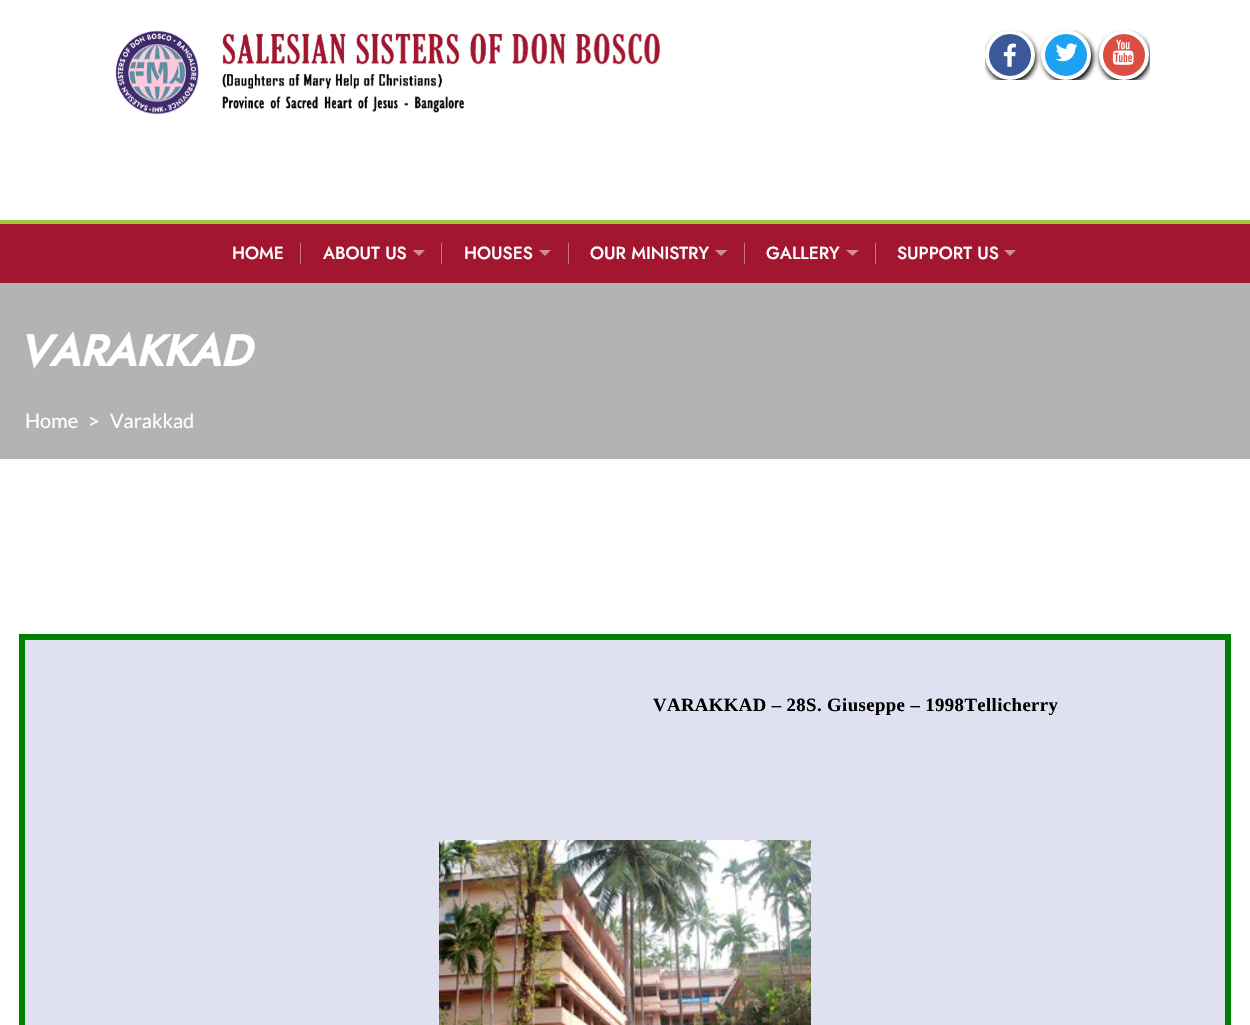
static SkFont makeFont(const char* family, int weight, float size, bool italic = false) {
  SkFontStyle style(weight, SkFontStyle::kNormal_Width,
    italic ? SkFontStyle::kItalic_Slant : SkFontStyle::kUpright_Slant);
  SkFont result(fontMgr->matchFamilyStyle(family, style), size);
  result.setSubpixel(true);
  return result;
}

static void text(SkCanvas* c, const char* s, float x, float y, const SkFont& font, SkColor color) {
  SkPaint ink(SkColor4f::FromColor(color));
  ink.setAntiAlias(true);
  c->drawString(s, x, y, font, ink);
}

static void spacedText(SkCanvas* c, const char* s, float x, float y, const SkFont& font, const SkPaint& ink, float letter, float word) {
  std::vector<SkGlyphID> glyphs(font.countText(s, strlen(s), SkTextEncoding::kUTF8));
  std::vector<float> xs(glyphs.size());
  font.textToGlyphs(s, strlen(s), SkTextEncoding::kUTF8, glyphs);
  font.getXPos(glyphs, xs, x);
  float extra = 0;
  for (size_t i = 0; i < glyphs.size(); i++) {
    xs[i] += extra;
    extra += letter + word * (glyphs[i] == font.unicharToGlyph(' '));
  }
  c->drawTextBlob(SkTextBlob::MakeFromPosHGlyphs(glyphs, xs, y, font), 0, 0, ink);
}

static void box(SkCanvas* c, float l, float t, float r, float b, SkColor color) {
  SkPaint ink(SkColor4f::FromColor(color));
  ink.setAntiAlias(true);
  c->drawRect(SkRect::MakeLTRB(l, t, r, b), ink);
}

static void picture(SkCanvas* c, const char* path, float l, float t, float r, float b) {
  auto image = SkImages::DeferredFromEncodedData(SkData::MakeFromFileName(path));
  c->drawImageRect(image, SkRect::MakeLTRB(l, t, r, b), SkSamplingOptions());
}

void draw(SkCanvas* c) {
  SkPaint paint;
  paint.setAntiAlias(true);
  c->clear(0xffffffff);
  picture(c, "img_01.png", 115, 30, 661, 115);
  c->save();
  c->clipRect(SkRect::MakeLTRB(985, 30, 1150, 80));
  paint.setColor(0xff000000);
  paint.setMaskFilter(SkMaskFilter::MakeBlur(kNormal_SkBlurStyle, 2.5f));
  c->drawRoundRect(SkRect::MakeLTRB(986, 33, 1036, 83), 25, 25, paint);
  paint.setMaskFilter(nullptr);
  c->restore();
  paint.setColor(0xff3b5998);
  c->drawCircle(1010, 55, 23, paint);
  paint.setStyle(SkPaint::kStroke_Style);
  paint.setStrokeWidth(4);
  paint.setColor(0xffffffff);
  c->drawCircle(1010, 55, 23, paint);
  picture(c, "img_02.png", 1003, 43, 1016, 67);
  c->save();
  c->clipRect(SkRect::MakeLTRB(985, 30, 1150, 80));
  paint.setStyle(SkPaint::kFill_Style);
  paint.setColor(0xff000000);
  paint.setMaskFilter(SkMaskFilter::MakeBlur(kNormal_SkBlurStyle, 2.5f));
  c->drawRoundRect(SkRect::MakeLTRB(1043, 33, 1093, 83), 25, 25, paint);
  paint.setMaskFilter(nullptr);
  c->restore();
  paint.setColor(0xff1da1f2);
  c->drawCircle(1066, 55, 23, paint);
  paint.setStyle(SkPaint::kStroke_Style);
  paint.setColor(0xffffffff);
  c->drawCircle(1066, 55, 23, paint);
  picture(c, "img_03.png", 1055, 43, 1078, 62);
  c->save();
  c->clipRect(SkRect::MakeLTRB(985, 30, 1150, 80));
  paint.setStyle(SkPaint::kFill_Style);
  paint.setColor(0xff000000);
  paint.setMaskFilter(SkMaskFilter::MakeBlur(kNormal_SkBlurStyle, 2.5f));
  c->drawRoundRect(SkRect::MakeLTRB(1100, 33, 1150, 83), 25, 25, paint);
  paint.setMaskFilter(nullptr);
  c->restore();
  paint.setColor(0xffdc4e41);
  c->drawCircle(1124, 55, 23, paint);
  paint.setStyle(SkPaint::kStroke_Style);
  paint.setColor(0xffffffff);
  c->drawCircle(1124, 55, 23, paint);
  picture(c, "img_04.png", 1112, 39, 1134, 65);
  box(c, 0, 224, 1250, 283, 0xffa21630);
  box(c, 0, 220, 1250, 224, 0xffa0c542);
  box(c, 300, 243, 301, 264, 0xffc77383);
  SkFont face1 = makeFont("Jost", 500, 17.5f);
  text(c, "HOME", 232, 259, face1, 0xffffffff);
  box(c, 441, 243, 442, 264, 0xffc77383);
  text(c, "ABOUT US", 323, 259, face1, 0xffffffff);
  paint.setStyle(SkPaint::kFill_Style);
  paint.setColor(0xffd18b98);
  c->drawPath(SkPathBuilder().moveTo(412.5f, 250).lineTo(425, 250).lineTo(419, 256).close().detach(), paint);
  box(c, 568, 243, 569, 264, 0xffc77383);
  text(c, "HOUSES", 464, 259, face1, 0xffffffff);
  c->drawPath(SkPathBuilder().moveTo(539, 250).lineTo(551, 250).lineTo(545, 256).close().detach(), paint);
  box(c, 744, 243, 745, 264, 0xffc77383);
  text(c, "OUR MINISTRY", 590, 259, face1, 0xffffffff);
  c->drawPath(SkPathBuilder().moveTo(715, 250).lineTo(727.5f, 250).lineTo(721, 256).close().detach(), paint);
  box(c, 875, 243, 876, 264, 0xffc77383);
  text(c, "GALLERY", 766, 259, face1, 0xffffffff);
  c->drawPath(SkPathBuilder().moveTo(846, 250).lineTo(859, 250).lineTo(852.5f, 256).close().detach(), paint);
  text(c, "SUPPORT US", 897, 259, face1, 0xffffffff);
  c->drawPath(SkPathBuilder().moveTo(1004, 250).lineTo(1016, 250).lineTo(1010, 256).close().detach(), paint);
  box(c, 0, 283, 1250, 459, 0xffb3b3b3);
  SkFont face2 = makeFont("Jost", 700, 43.75f, true);
  text(c, "VARAKKAD", 19, 366, face2, 0xffffffff);
  SkFont face3 = makeFont("Lato", 400, 20);
  text(c, "Home", 25, 428, face3, 0xffffffff);
  text(c, ">", 88, 428, face3, 0xffffffff);
  text(c, "Varakkad", 110, 428, face3, 0xffffffff);
  paint.setColor(0xffdfe0f0);
  c->drawRect(SkRect::MakeLTRB(22, 637, 1228, 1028), paint);
  paint.setStyle(SkPaint::kStroke_Style);
  paint.setStrokeWidth(6);
  paint.setColor(0xff008000);
  c->drawRect(SkRect::MakeLTRB(22, 637, 1228, 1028), paint);
  SkFont face4 = makeFont("Liberation Serif", 700, 18.75f);
  paint.setStyle(SkPaint::kFill_Style);
  paint.setColor(0xff000000);
  spacedText(c, "VARAKKAD – 28S. Giuseppe – 1998Tellicherry", 653, 711, face4, paint, 0.4f, 0);
  picture(c, "img_05.png", 439, 840, 811, 1025);
}
